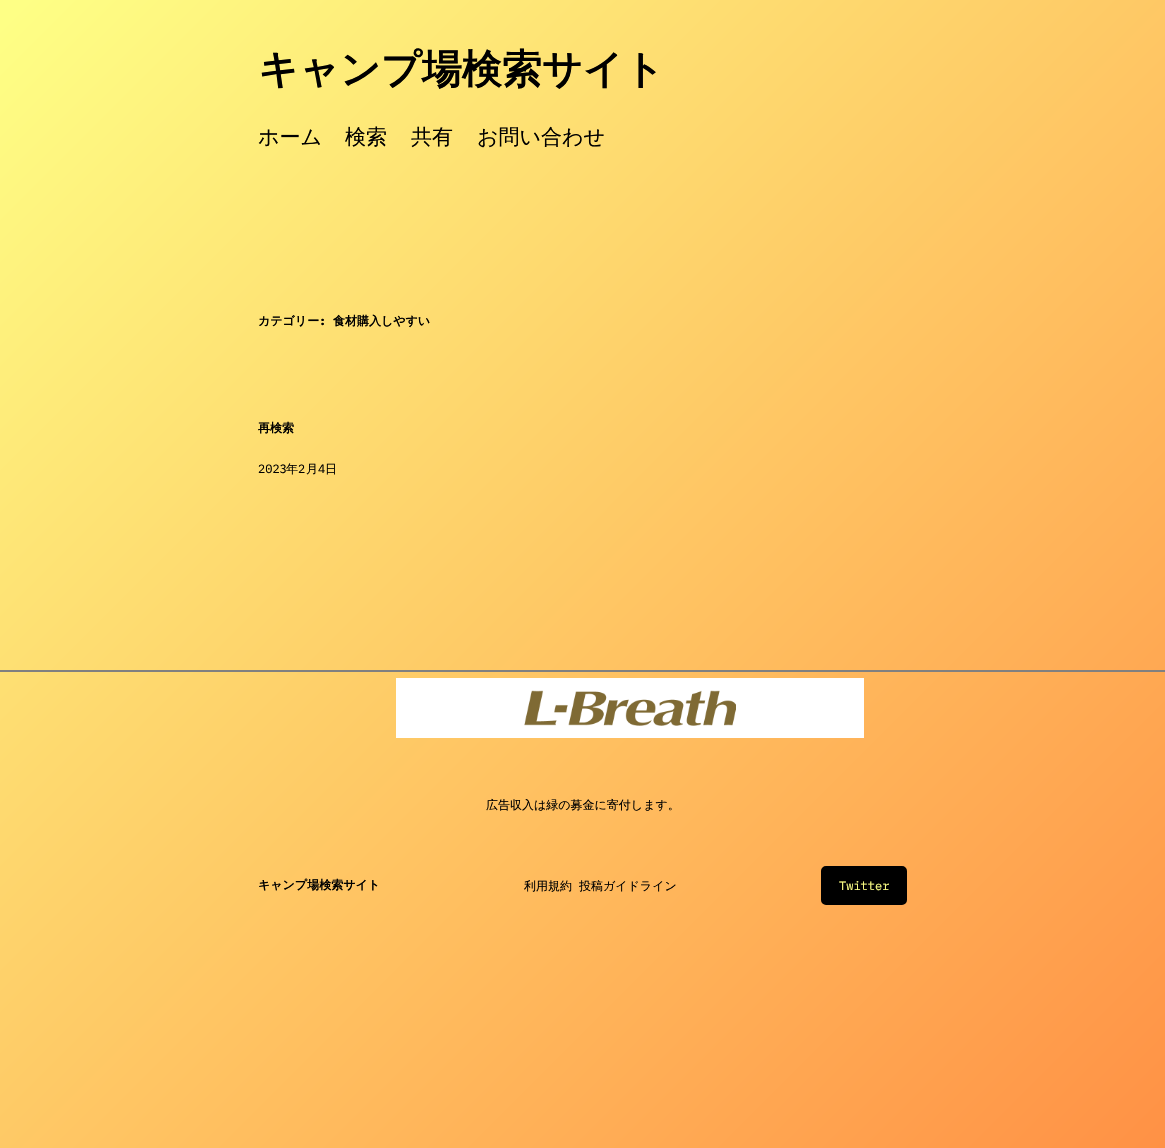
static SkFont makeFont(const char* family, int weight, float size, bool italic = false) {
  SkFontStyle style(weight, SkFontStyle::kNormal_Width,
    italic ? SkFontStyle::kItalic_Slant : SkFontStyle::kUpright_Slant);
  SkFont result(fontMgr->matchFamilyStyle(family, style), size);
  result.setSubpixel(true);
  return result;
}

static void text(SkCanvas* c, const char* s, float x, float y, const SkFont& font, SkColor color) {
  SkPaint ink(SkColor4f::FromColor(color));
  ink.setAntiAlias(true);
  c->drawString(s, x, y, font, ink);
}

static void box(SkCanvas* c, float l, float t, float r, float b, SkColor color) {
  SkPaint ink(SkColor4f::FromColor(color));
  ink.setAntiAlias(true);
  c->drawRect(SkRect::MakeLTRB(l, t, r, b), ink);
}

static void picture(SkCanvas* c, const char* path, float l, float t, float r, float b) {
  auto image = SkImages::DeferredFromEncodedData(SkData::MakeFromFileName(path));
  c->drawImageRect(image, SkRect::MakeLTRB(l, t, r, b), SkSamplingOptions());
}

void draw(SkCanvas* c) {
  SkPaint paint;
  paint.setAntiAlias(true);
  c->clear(0xffffffff);
  {
    const SkColor colors[] = {0xfffeff85, 0xffff9145};
    const float stops[] = {0.01f, 1};
    const SkPoint ends[] = {{4.2f, -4.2f}, {1161, 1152}};
    paint.setShader(SkGradientShader::MakeLinear(ends, colors, stops, 2, SkTileMode::kClamp));
    paint.setAlpha(255);
  }
  c->drawRect(SkRect::MakeLTRB(0, 0, 1165, 1148), paint);
  SkFont face1 = makeFont("WenQuanYi Zen Hei", 700, 40);
  text(c, "キャンプ場検索サイト", 258, 83, face1, 0xff000000);
  SkFont face2 = makeFont("WenQuanYi Zen Hei", 500, 21);
  text(c, "ホーム", 258, 144, face2, 0xff000000);
  text(c, "検索", 345, 144, face2, 0xff000000);
  text(c, "共有", 411, 144, face2, 0xff000000);
  text(c, "お問い合わせ", 477, 144, face2, 0xff000000);
  SkFont face3 = makeFont("WenQuanYi Zen Hei", 700, 12);
  text(c, "カテゴリー", 258, 325, face3, 0xff000000);
  SkFont face4 = makeFont("IBM Plex Mono", 700, 12);
  text(c, ":", 319, 325, face4, 0xff000000);
  text(c, "食材購入しやすい", 333, 325, face3, 0xff000000);
  text(c, "再検索", 258, 432, face3, 0xff000000);
  SkFont face5 = makeFont("IBM Plex Mono", 400, 12);
  text(c, "2023", 258, 473, face5, 0xff000000);
  SkFont face6 = makeFont("WenQuanYi Zen Hei", 500, 12);
  text(c, "年", 286, 473, face6, 0xff000000);
  text(c, "2", 298, 473, face5, 0xff000000);
  text(c, "月", 306, 473, face6, 0xff000000);
  text(c, "4", 318, 473, face5, 0xff000000);
  text(c, "日", 325, 473, face6, 0xff000000);
  box(c, 0, 670, 1165, 672, 0xff808080);
  picture(c, "img_01.png", 396, 678, 864, 738);
  text(c, "広告収入は緑の募金に寄付します。", 486, 809, face6, 0xff000000);
  text(c, "キャンプ場検索サイト", 258, 889, face3, 0xff000000);
  text(c, "利用規約", 524, 890, face6, 0xff000000);
  text(c, "投稿ガイドライン", 579, 890, face6, 0xff000000);
  paint.setShader(nullptr);
  paint.setColor(0xff000000);
  c->drawRoundRect(SkRect::MakeLTRB(822, 867, 906, 904), 4, 4, paint);
  paint.setStyle(SkPaint::kStroke_Style);
  paint.setStrokeWidth(2);
  c->drawRoundRect(SkRect::MakeLTRB(822, 867, 906, 904), 4, 4, paint);
  text(c, "Twitter", 839, 890, face5, 0xfffdff85);
}
